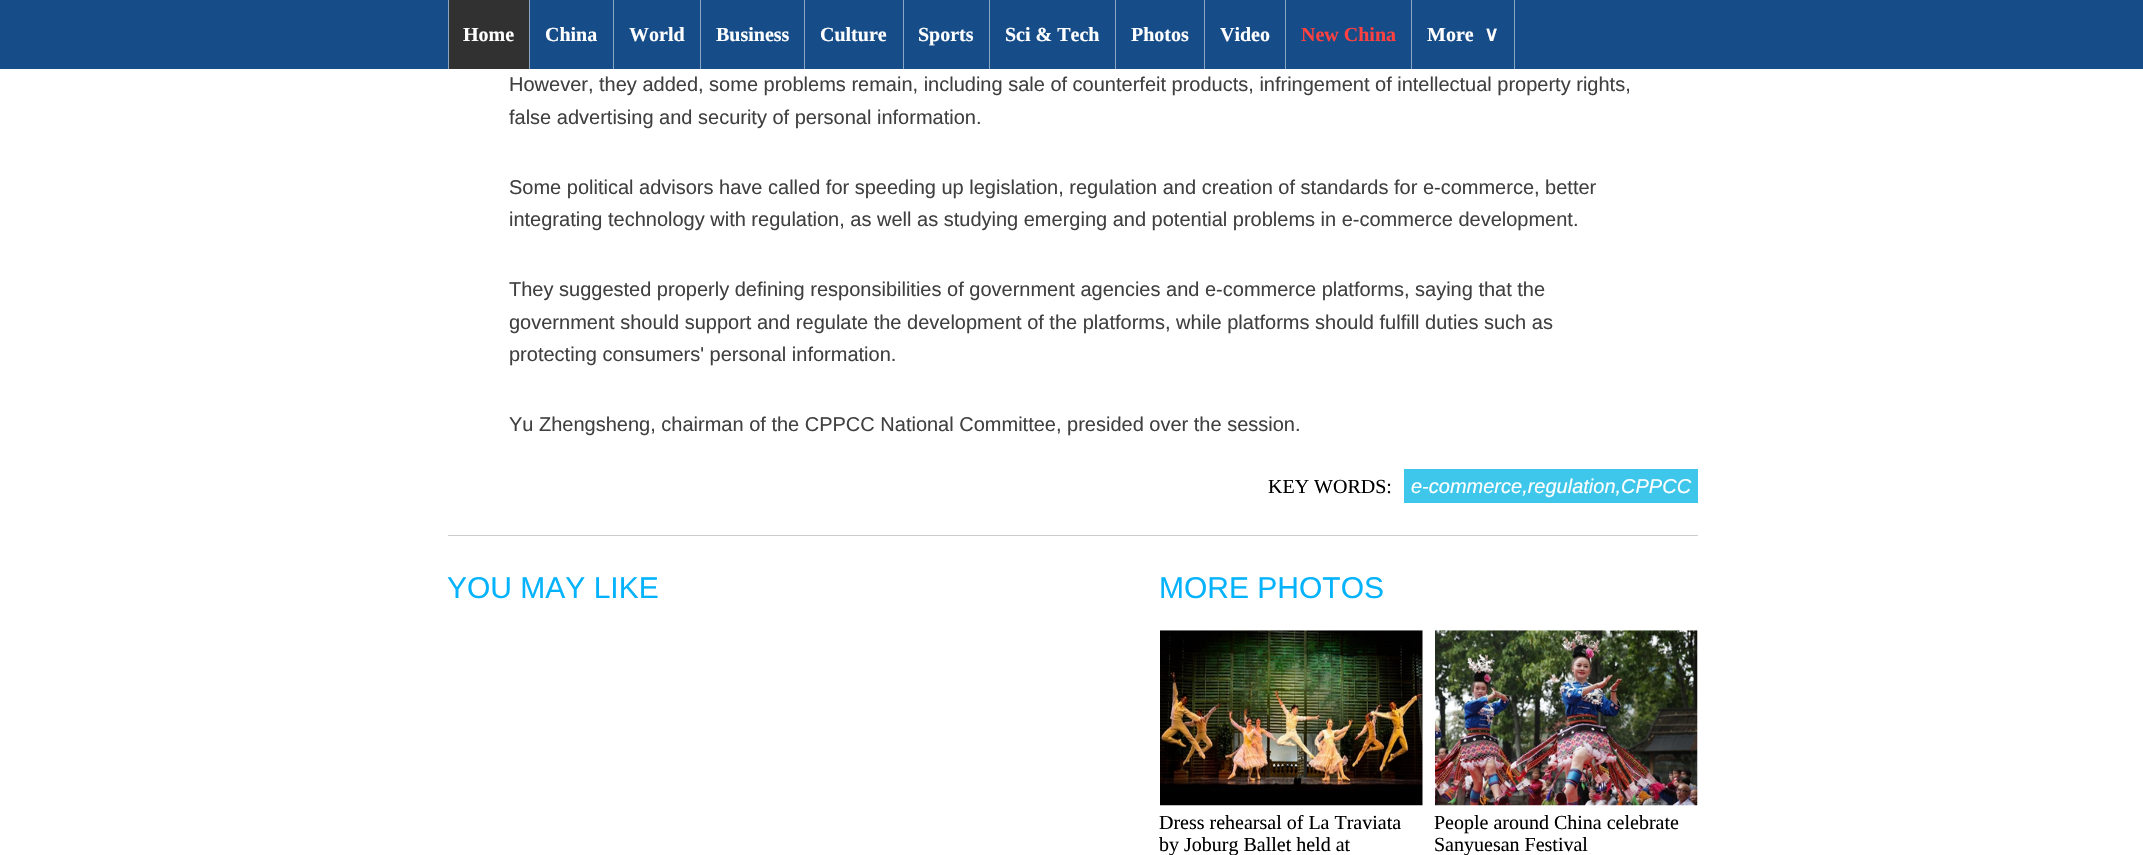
static SkFont makeFont(const char* family, int weight, float size, bool italic = false) {
  SkFontStyle style(weight, SkFontStyle::kNormal_Width,
    italic ? SkFontStyle::kItalic_Slant : SkFontStyle::kUpright_Slant);
  SkFont result(fontMgr->matchFamilyStyle(family, style), size);
  result.setSubpixel(true);
  return result;
}

static void text(SkCanvas* c, const char* s, float x, float y, const SkFont& font, SkColor color) {
  SkPaint ink(SkColor4f::FromColor(color));
  ink.setAntiAlias(true);
  c->drawString(s, x, y, font, ink);
}

static void box(SkCanvas* c, float l, float t, float r, float b, SkColor color) {
  SkPaint ink(SkColor4f::FromColor(color));
  ink.setAntiAlias(true);
  c->drawRect(SkRect::MakeLTRB(l, t, r, b), ink);
}

static void picture(SkCanvas* c, const char* path, float l, float t, float r, float b) {
  auto image = SkImages::DeferredFromEncodedData(SkData::MakeFromFileName(path));
  c->drawImageRect(image, SkRect::MakeLTRB(l, t, r, b), SkSamplingOptions());
}

void draw(SkCanvas* c) {
  SkPaint paint;
  paint.setAntiAlias(true);
  c->clear(0xffffffff);
  box(c, 0, 0, 2143, 69, 0xff164c88);
  box(c, 449, 0, 529, 69, 0xff313131);
  box(c, 448, 0, 449, 69, 0xff8ba6c4);
  SkFont face1 = makeFont("Liberation Serif", 700, 20);
  text(c, "Home", 463, 41, face1, 0xffffffff);
  box(c, 529, 0, 530, 69, 0xff8ba6c4);
  text(c, "China", 545, 41, face1, 0xffffffff);
  box(c, 613, 0, 614, 69, 0xff8ba6c4);
  text(c, "World", 629, 41, face1, 0xffffffff);
  box(c, 700, 0, 701, 69, 0xff8ba6c4);
  text(c, "Business", 716, 41, face1, 0xffffffff);
  box(c, 804, 0, 805, 69, 0xff8ba6c4);
  text(c, "Culture", 820, 41, face1, 0xffffffff);
  box(c, 903, 0, 904, 69, 0xff8ba6c4);
  text(c, "Sports", 918, 41, face1, 0xffffffff);
  box(c, 989, 0, 990, 69, 0xff8ba6c4);
  text(c, "Sci & Tech", 1005, 41, face1, 0xffffffff);
  box(c, 1115, 0, 1116, 69, 0xff8ba6c4);
  text(c, "Photos", 1131, 41, face1, 0xffffffff);
  box(c, 1204, 0, 1205, 69, 0xff8ba6c4);
  text(c, "Video", 1220, 41, face1, 0xffffffff);
  box(c, 1285, 0, 1286, 69, 0xff8ba6c4);
  text(c, "New China", 1301, 41, face1, 0xffff4040);
  box(c, 1514, 0, 1515, 69, 0xff8ba6c4);
  box(c, 1411, 0, 1412, 69, 0xff8ba6c4);
  text(c, "More", 1427, 41, face1, 0xffffffff);
  SkFont face2 = makeFont("DejaVu Sans", 700, 20);
  text(c, "∨", 1484, 41, face2, 0xffffffff);
  SkFont face3 = makeFont("Liberation Sans", 400, 20);
  text(c, "However, they added, some problems remain, including sale of counterfeit products, infringement of intellectual property rights,", 509, 91, face3, 0xff404040);
  text(c, "false advertising and security of personal information.", 509, 124, face3, 0xff404040);
  text(c, "Some political advisors have called for speeding up legislation, regulation and creation of standards for e-commerce, better", 509, 194, face3, 0xff404040);
  text(c, "integrating technology with regulation, as well as studying emerging and potential problems in e-commerce development.", 509, 226, face3, 0xff404040);
  text(c, "They suggested properly defining responsibilities of government agencies and e-commerce platforms, saying that the", 509, 296, face3, 0xff404040);
  text(c, "government should support and regulate the development of the platforms, while platforms should fulfill duties such as", 509, 329, face3, 0xff404040);
  text(c, "protecting consumers' personal information.", 509, 361, face3, 0xff404040);
  text(c, "Yu Zhengsheng, chairman of the CPPCC National Committee, presided over the session.", 509, 431, face3, 0xff404040);
  box(c, 448, 535, 1698, 536, 0xffcccccc);
  SkFont face4 = makeFont("Liberation Serif", 400, 20);
  text(c, "KEY WORDS:", 1268, 493, face4, 0xff000000);
  box(c, 1404, 469, 1698, 503, 0xff3ec7ea);
  SkFont face5 = makeFont("Liberation Sans", 400, 20, true);
  text(c, "e-commerce,regulation,CPPCC", 1411, 493, face5, 0xffffffff);
  SkFont face6 = makeFont("Liberation Sans", 400, 30);
  text(c, "YOU MAY LIKE", 447, 598, face6, 0xff05b3fc);
  text(c, "MORE PHOTOS", 1159, 598, face6, 0xff05b3fc);
  picture(c, "img_01.png", 1160, 630, 1423, 806);
  text(c, "Dress rehearsal of La Traviata", 1159, 829, face4, 0xff000000);
  text(c, "by Joburg Ballet held at", 1159, 851, face4, 0xff000000);
  picture(c, "img_02.png", 1435, 630, 1698, 806);
  text(c, "People around China celebrate", 1434, 829, face4, 0xff000000);
  text(c, "Sanyuesan Festival", 1434, 851, face4, 0xff000000);
}
